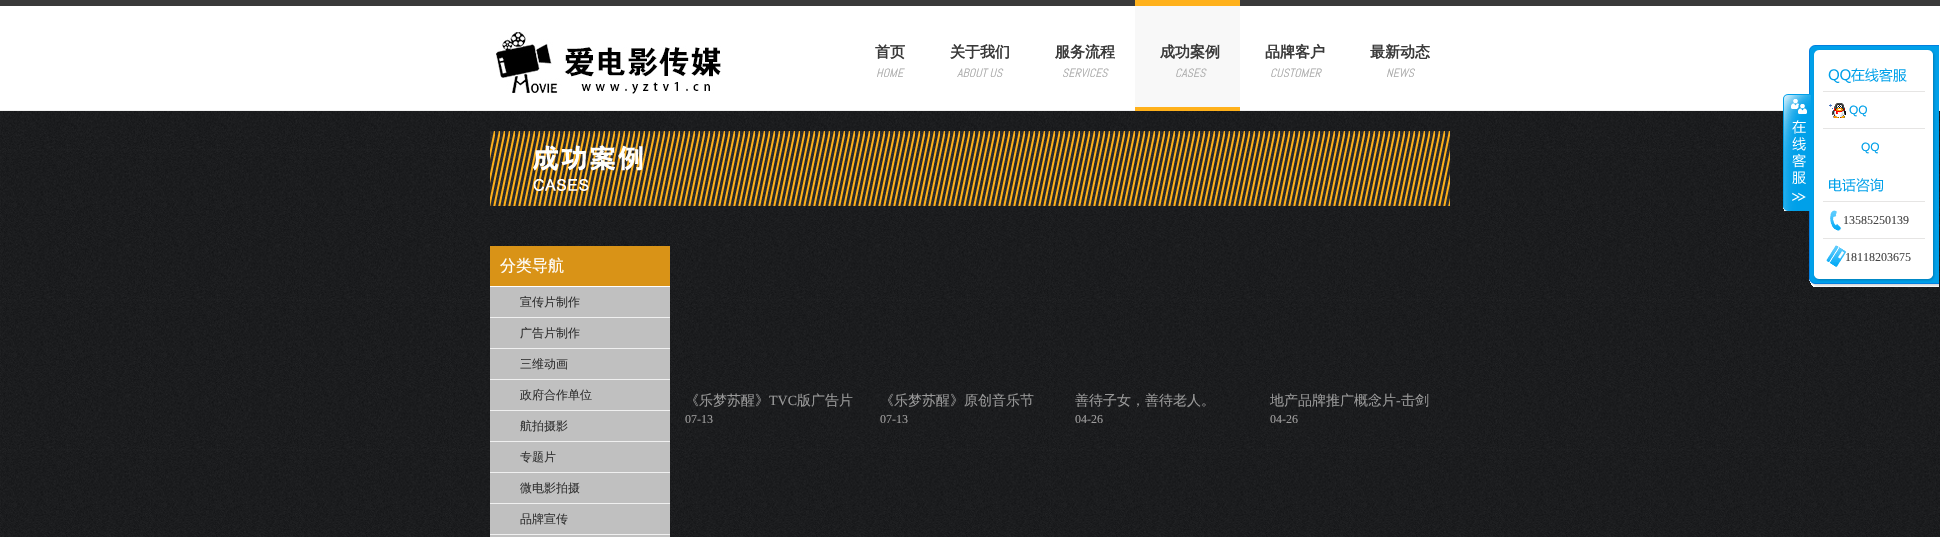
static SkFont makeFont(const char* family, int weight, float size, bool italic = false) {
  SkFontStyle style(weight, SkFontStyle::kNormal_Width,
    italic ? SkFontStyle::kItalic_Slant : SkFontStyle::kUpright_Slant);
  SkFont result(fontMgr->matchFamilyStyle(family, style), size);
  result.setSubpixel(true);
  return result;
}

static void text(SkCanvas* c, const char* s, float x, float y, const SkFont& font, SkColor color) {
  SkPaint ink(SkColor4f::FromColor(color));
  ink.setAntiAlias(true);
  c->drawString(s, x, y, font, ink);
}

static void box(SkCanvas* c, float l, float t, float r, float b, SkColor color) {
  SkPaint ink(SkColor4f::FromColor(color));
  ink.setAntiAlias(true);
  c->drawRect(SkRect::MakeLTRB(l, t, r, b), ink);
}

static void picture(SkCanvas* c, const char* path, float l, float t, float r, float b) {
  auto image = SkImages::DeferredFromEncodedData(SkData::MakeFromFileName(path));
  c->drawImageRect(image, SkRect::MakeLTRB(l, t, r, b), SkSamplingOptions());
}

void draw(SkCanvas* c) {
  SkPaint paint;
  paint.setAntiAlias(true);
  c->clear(0xffffffff);
  picture(c, "img_01.png", 0, 111, 1940, 537);
  box(c, 0, 0, 1940, 6, 0xff3a3a3a);
  box(c, 0, 110, 1940, 111, 0xfff0f0f0);
  picture(c, "img_02.png", 496, 32, 721, 94);
  SkFont face1 = makeFont("WenQuanYi Zen Hei", 700, 15);
  text(c, "首页", 875, 57, face1, 0xff3a3a3a);
  SkFont face2 = makeFont("Abel", 400, 12, true);
  text(c, "HOME", 876, 77, face2, 0xffaaaaaa);
  text(c, "关于我们", 950, 57, face1, 0xff3a3a3a);
  text(c, "ABOUT US", 957, 77, face2, 0xffaaaaaa);
  text(c, "服务流程", 1055, 57, face1, 0xff3a3a3a);
  text(c, "SERVICES", 1062, 77, face2, 0xffaaaaaa);
  picture(c, "img_03.png", 1135, 6, 1240, 111);
  box(c, 1135, 0, 1240, 6, 0xffffb11b);
  text(c, "成功案例", 1160, 57, face1, 0xff3a3a3a);
  text(c, "CASES", 1175, 77, face2, 0xffaaaaaa);
  text(c, "品牌客户", 1265, 57, face1, 0xff3a3a3a);
  text(c, "CUSTOMER", 1270, 77, face2, 0xffaaaaaa);
  text(c, "最新动态", 1370, 57, face1, 0xff3a3a3a);
  text(c, "NEWS", 1386, 77, face2, 0xffaaaaaa);
  picture(c, "img_07.png", 1809, 55, 1939, 275);
  picture(c, "img_04.png", 1783, 94, 1811, 211);
  picture(c, "img_05.png", 1809, 275, 1939, 287);
  picture(c, "img_06.png", 1809, 45, 1939, 55);
  picture(c, "img_08.png", 1828, 68, 1907, 83);
  box(c, 1823, 91, 1925, 92, 0xffe6e5e4);
  picture(c, "img_09.png", 1829, 103, 1846, 118);
  SkFont face3 = makeFont("Liberation Sans", 400, 12);
  text(c, "QQ", 1849, 114, face3, 0xff00a0e9);
  box(c, 1823, 128, 1925, 129, 0xffe6e5e4);
  text(c, "QQ", 1861, 151, face3, 0xff00a0e9);
  picture(c, "img_10.png", 1829, 178, 1884, 192);
  box(c, 1823, 201, 1925, 202, 0xffe6e5e4);
  picture(c, "img_11.png", 1830, 210, 1842, 231);
  SkFont face4 = makeFont("Liberation Serif", 400, 12);
  text(c, "13585250139", 1843, 224, face4, 0xff444444);
  box(c, 1823, 238, 1925, 239, 0xffe6e5e4);
  picture(c, "img_12.png", 1826, 245, 1846, 268);
  text(c, "18118203675", 1845, 261, face4, 0xff444444);
  picture(c, "img_13.png", 490, 131, 1450, 206);
  picture(c, "img_14.png", 490, 139, 654, 206);
  box(c, 490, 246, 670, 286, 0xffd99317);
  box(c, 490, 286, 670, 287, 0xffffffff);
  SkFont face5 = makeFont("WenQuanYi Zen Hei", 500, 16);
  text(c, "分类导航", 500, 271, face5, 0xffffffff);
  box(c, 490, 287, 670, 537, 0xffc0c0c0);
  box(c, 490, 317, 670, 318, 0xfff0f0f0);
  SkFont face6 = makeFont("WenQuanYi Zen Hei", 500, 12);
  text(c, "宣传片制作", 520, 306, face6, 0xff333333);
  box(c, 490, 348, 670, 349, 0xfff0f0f0);
  text(c, "广告片制作", 520, 337, face6, 0xff333333);
  box(c, 490, 379, 670, 380, 0xfff0f0f0);
  text(c, "三维动画", 520, 368, face6, 0xff333333);
  box(c, 490, 410, 670, 411, 0xfff0f0f0);
  text(c, "政府合作单位", 520, 399, face6, 0xff333333);
  box(c, 490, 441, 670, 442, 0xfff0f0f0);
  text(c, "航拍摄影", 520, 430, face6, 0xff333333);
  box(c, 490, 472, 670, 473, 0xfff0f0f0);
  text(c, "专题片", 520, 461, face6, 0xff333333);
  box(c, 490, 503, 670, 504, 0xfff0f0f0);
  text(c, "微电影拍摄", 520, 492, face6, 0xff333333);
  box(c, 490, 534, 670, 535, 0xfff0f0f0);
  text(c, "品牌宣传", 520, 523, face6, 0xff333333);
  SkFont face7 = makeFont("WenQuanYi Zen Hei", 500, 14);
  text(c, "《乐梦苏醒》", 685, 405, face7, 0xff999999);
  SkFont face8 = makeFont("Liberation Serif", 400, 14);
  text(c, "TVC", 769, 405, face8, 0xff999999);
  text(c, "版广告片", 797, 405, face7, 0xff999999);
  text(c, "07-13", 685, 423, face4, 0xff9f9e9e);
  text(c, "《乐梦苏醒》原创音乐节", 880, 405, face7, 0xff999999);
  text(c, "07-13", 880, 423, face4, 0xff9f9e9e);
  text(c, "善待子女，善待老人。", 1075, 405, face7, 0xff999999);
  text(c, "04-26", 1075, 423, face4, 0xff9f9e9e);
  text(c, "地产品牌推广概念片", 1270, 405, face7, 0xff999999);
  text(c, "-", 1396, 405, face8, 0xff999999);
  text(c, "击剑", 1401, 405, face7, 0xff999999);
  text(c, "04-26", 1270, 423, face4, 0xff9f9e9e);
}
